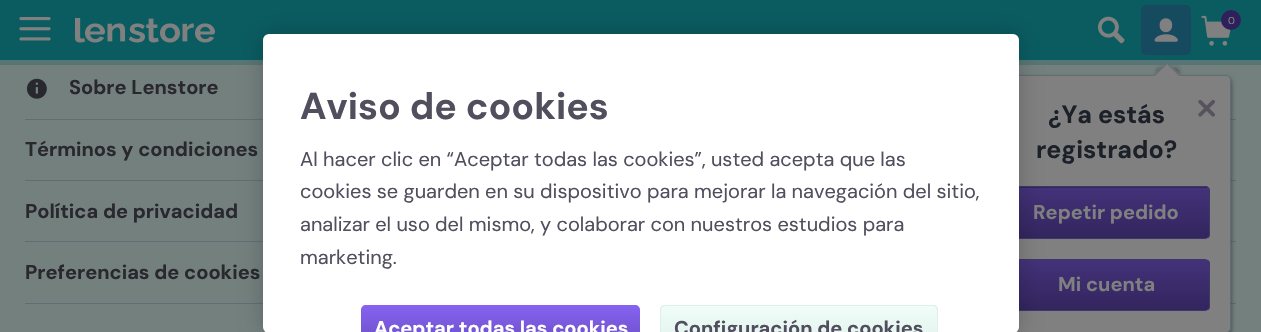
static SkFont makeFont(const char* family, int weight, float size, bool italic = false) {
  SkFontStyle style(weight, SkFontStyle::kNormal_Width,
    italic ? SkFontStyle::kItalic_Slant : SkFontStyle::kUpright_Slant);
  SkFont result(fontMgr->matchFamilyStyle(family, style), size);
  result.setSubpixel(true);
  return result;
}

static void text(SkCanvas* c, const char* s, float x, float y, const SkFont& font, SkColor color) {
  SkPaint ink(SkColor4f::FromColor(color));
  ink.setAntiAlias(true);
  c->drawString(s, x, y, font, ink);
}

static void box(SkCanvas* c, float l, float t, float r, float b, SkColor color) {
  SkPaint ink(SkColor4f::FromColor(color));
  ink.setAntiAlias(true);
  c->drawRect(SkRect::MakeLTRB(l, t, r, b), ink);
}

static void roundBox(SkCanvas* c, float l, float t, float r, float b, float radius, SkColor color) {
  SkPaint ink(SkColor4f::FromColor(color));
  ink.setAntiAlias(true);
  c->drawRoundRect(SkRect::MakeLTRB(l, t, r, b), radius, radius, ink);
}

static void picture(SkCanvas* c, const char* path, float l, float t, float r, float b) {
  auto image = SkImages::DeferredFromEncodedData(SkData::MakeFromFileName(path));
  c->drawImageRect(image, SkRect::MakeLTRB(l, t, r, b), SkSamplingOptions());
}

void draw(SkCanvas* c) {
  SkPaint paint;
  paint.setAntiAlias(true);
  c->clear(0xff73807d);
  box(c, 25, 119, 1236, 120, 0xff616d74);
  picture(c, "img_01.png", 26, 78, 47, 99);
  SkFont face1 = makeFont("DM Sans", 700, 20);
  text(c, "Sobre Lenstore", 69, 94, face1, 0xff29282f);
  box(c, 25, 180, 1236, 181, 0xff616d74);
  text(c, "Términos y condiciones", 25, 156, face1, 0xff29282f);
  box(c, 25, 241, 1236, 242, 0xff616d74);
  text(c, "Política de privacidad", 25, 218, face1, 0xff29282f);
  box(c, 25, 303, 1236, 304, 0xff616d74);
  text(c, "Preferencias de cookies", 25, 279, face1, 0xff29282f);
  box(c, 0, 0, 1261, 60, 0xff0a5c61);
  box(c, 0, 60, 1261, 65, 0xff577574);
  picture(c, "img_02.png", 19, 17, 51, 41);
  picture(c, "img_03.png", 75, 18, 215, 43);
  picture(c, "img_04.png", 1098, 16, 1125, 44);
  picture(c, "img_05.png", 1201, 15, 1231, 46);
  paint.setColor(0xff2e205a);
  c->drawCircle(1231, 20, 10, paint);
  SkFont face2 = makeFont("DM Sans", 400, 10);
  text(c, "0", 1228, 24, face2, 0xff808080);
  roundBox(c, 1141, 5, 1191, 55, 5, 0xff154a5f);
  picture(c, "img_06.png", 1154, 18, 1178, 42);
  paint.setColor(0x80000000);
  paint.setMaskFilter(SkMaskFilter::MakeBlur(kNormal_SkBlurStyle, 2.5f));
  c->drawRoundRect(SkRect::MakeLTRB(981, 78, 1231, 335), 5, 5, paint);
  paint.setMaskFilter(nullptr);
  paint.setColor(0xff808080);
  c->drawRoundRect(SkRect::MakeLTRB(981.5f, 75.5f, 1230.5f, 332.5f), 4.5f, 4.5f, paint);
  paint.setStyle(SkPaint::kStroke_Style);
  paint.setStrokeWidth(1);
  paint.setColor(0xff616d74);
  c->drawRoundRect(SkRect::MakeLTRB(981.5f, 75.5f, 1230.5f, 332.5f), 4.5f, 4.5f, paint);
  c->save();
  c->clipRect(SkRect::MakeLTRB(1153, 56, 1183, 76));
  paint.setStyle(SkPaint::kFill_Style);
  paint.setColor(0x80000000);
  paint.setMaskFilter(SkMaskFilter::MakeBlur(kNormal_SkBlurStyle, 2.5f));
  c->drawRect(SkRect::MakeLTRB(1158, 69, 1178, 89), paint);
  paint.setMaskFilter(nullptr);
  c->restore();
  c->save();
  c->clipRect(SkRect::MakeLTRB(1153, 56, 1183, 76));
  paint.setColor(0xff808080);
  c->drawPath(SkPathBuilder().moveTo(1167, 62).lineTo(1181.5f, 76).lineTo(1167, 90.5f).lineTo(1153, 76).close().detach(), paint);
  paint.setStyle(SkPaint::kStroke_Style);
  paint.setStrokeWidth(1.3f);
  paint.setColor(0xff616d74);
  c->drawPath(SkPathBuilder().moveTo(1167, 63).lineTo(1180.5f, 76.5f).lineTo(1167, 89.5f).lineTo(1154, 76).close().detach(), paint);
  c->restore();
  SkFont face3 = makeFont("DM Sans", 700, 25);
  text(c, "¿Ya estás", 1048, 123, face3, 0xff1c2129);
  text(c, "registrado?", 1036, 158, face3, 0xff1c2129);
  picture(c, "img_07.png", 1198, 99, 1215, 117);
  c->save();
  c->clipPath(SkPathBuilder().moveTo(1008, 186).lineTo(1205, 186).cubicTo(1208, 186, 1210, 188, 1210, 191).lineTo(1210, 234).cubicTo(1210, 237, 1208, 239, 1205, 239).lineTo(1008, 239).cubicTo(1005, 239, 1003, 237, 1003, 234).lineTo(1003, 191).cubicTo(1003, 188, 1005, 186, 1008, 186).close().detach(), true);
  paint.setStyle(SkPaint::kFill_Style);
  {
    const SkColor colors[] = {0xff433279, 0xff33255e};
    const float stops[] = {0, 1};
    const SkPoint ends[] = {{1106, 137}, {1106, 188}};
    paint.setShader(SkGradientShader::MakeLinear(ends, colors, stops, 2, SkTileMode::kClamp));
    paint.setAlpha(255);
  }
  c->drawRect(SkRect::MakeLTRB(1019, 186, 1210, 188), paint);
  {
    const SkColor colors[] = {0xff433279, 0xff33255e};
    const float stops[] = {0, 1};
    const SkPoint ends[] = {{1106, 188}, {1106, 238}};
    paint.setShader(SkGradientShader::MakeLinear(ends, colors, stops, 2, SkTileMode::kClamp));
    paint.setAlpha(255);
  }
  c->drawRect(SkRect::MakeLTRB(1019, 188, 1210, 238), paint);
  c->restore();
  paint.setStyle(SkPaint::kStroke_Style);
  paint.setStrokeWidth(1);
  paint.setShader(nullptr);
  paint.setColor(0xff3e3769);
  c->drawRoundRect(SkRect::MakeLTRB(1003.5f, 186.5f, 1209.5f, 238.5f), 4.5f, 4.5f, paint);
  text(c, "Repetir pedido", 1033, 219, face1, 0xff808080);
  c->save();
  c->clipPath(SkPathBuilder().moveTo(1008, 259).lineTo(1205, 259).cubicTo(1208, 259, 1210, 261, 1210, 264).lineTo(1210, 306).cubicTo(1210, 309, 1208, 311, 1205, 311).lineTo(1008, 311).cubicTo(1005, 311, 1003, 309, 1003, 306).lineTo(1003, 264).cubicTo(1003, 261, 1005, 259, 1008, 259).close().detach(), true);
  paint.setStyle(SkPaint::kFill_Style);
  {
    const SkColor colors[] = {0xff433279, 0xff33255e};
    const float stops[] = {0, 1};
    const SkPoint ends[] = {{1106, 260}, {1106, 310}};
    paint.setShader(SkGradientShader::MakeLinear(ends, colors, stops, 2, SkTileMode::kClamp));
    paint.setAlpha(255);
  }
  c->drawRect(SkRect::MakeLTRB(1019, 260, 1210, 310), paint);
  c->restore();
  paint.setStyle(SkPaint::kStroke_Style);
  paint.setShader(nullptr);
  paint.setColor(0xff3e3769);
  c->drawRoundRect(SkRect::MakeLTRB(1003.5f, 259.5f, 1209.5f, 310.5f), 4.5f, 4.5f, paint);
  text(c, "Mi cuenta", 1058, 291, face1, 0xff808080);
  paint.setStyle(SkPaint::kFill_Style);
  paint.setColor(0x33000000);
  paint.setMaskFilter(SkMaskFilter::MakeBlur(kNormal_SkBlurStyle, 11));
  c->drawRoundRect(SkRect::MakeLTRB(263, 34, 1019, 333), 6, 6, paint);
  paint.setMaskFilter(nullptr);
  roundBox(c, 263, 34, 1019, 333, 6, 0xffffffff);
  SkFont face4 = makeFont("DM Sans", 700, 37.5f);
  text(c, "Aviso de cookies", 300, 119, face4, 0xff514f5e);
  SkFont face5 = makeFont("DM Sans", 400, 20);
  text(c, "Al hacer clic en “Aceptar todas las cookies”, usted acepta que las", 300, 166, face5, 0xff514f5e);
  text(c, "cookies se guarden en su dispositivo para mejorar la navegación del sitio,", 300, 198, face5, 0xff514f5e);
  text(c, "analizar el uso del mismo, y colaborar con nuestros estudios para", 300, 231, face5, 0xff514f5e);
  text(c, "marketing.", 300, 264, face5, 0xff514f5e);
  {
    const SkColor colors[] = {0xff8663f1, 0xff654abb};
    const float stops[] = {0, 1};
    const SkPoint ends[] = {{501, 305}, {501, 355}};
    paint.setShader(SkGradientShader::MakeLinear(ends, colors, stops, 2, SkTileMode::kClamp));
    paint.setAlpha(255);
  }
  c->drawPath(SkPathBuilder().moveTo(366, 305).lineTo(635, 305).cubicTo(638, 305, 640, 307, 640, 310).lineTo(640, 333).lineTo(361, 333).lineTo(361, 310).cubicTo(361, 307, 363, 305, 366, 305).close().detach(), paint);
  text(c, "Aceptar todas las cookies", 374, 335, face1, 0xffffffff);
  c->save();
  c->clipPath(SkPathBuilder().moveTo(665, 305).lineTo(933, 305).cubicTo(936, 305, 938, 307, 938, 310).lineTo(938, 350).cubicTo(938, 353, 936, 355, 933, 355).lineTo(665, 355).cubicTo(662, 355, 660, 353, 660, 350).lineTo(660, 310).cubicTo(660, 307, 662, 305, 665, 305).close().detach(), true);
  {
    const SkColor colors[] = {0xfff0fdf8, 0xffe7f6f0, 0xffdfefe9};
    const float stops[] = {0, 0.5f, 1};
    const SkPoint ends[] = {{799, 306}, {799, 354}};
    paint.setShader(SkGradientShader::MakeLinear(ends, colors, stops, 3, SkTileMode::kClamp));
    paint.setAlpha(255);
  }
  c->drawRect(SkRect::MakeLTRB(660, 306, 938, 332), paint);
  c->restore();
  paint.setShader(nullptr);
  paint.setColor(0xffdfefe9);
  c->drawPath(SkPathBuilder().moveTo(665, 305).cubicTo(662, 305, 660, 307, 660, 310).lineTo(660, 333).lineTo(661, 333).lineTo(661, 310).cubicTo(661, 308, 663, 306, 665, 306).lineTo(933, 306).cubicTo(935, 306, 937, 308, 937, 310).lineTo(937, 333).lineTo(938, 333).lineTo(938, 310).cubicTo(938, 307, 936, 305, 933, 305).close().detach(), paint);
  text(c, "Configuración de cookies", 674, 335, face1, 0xff514f5e);
}
